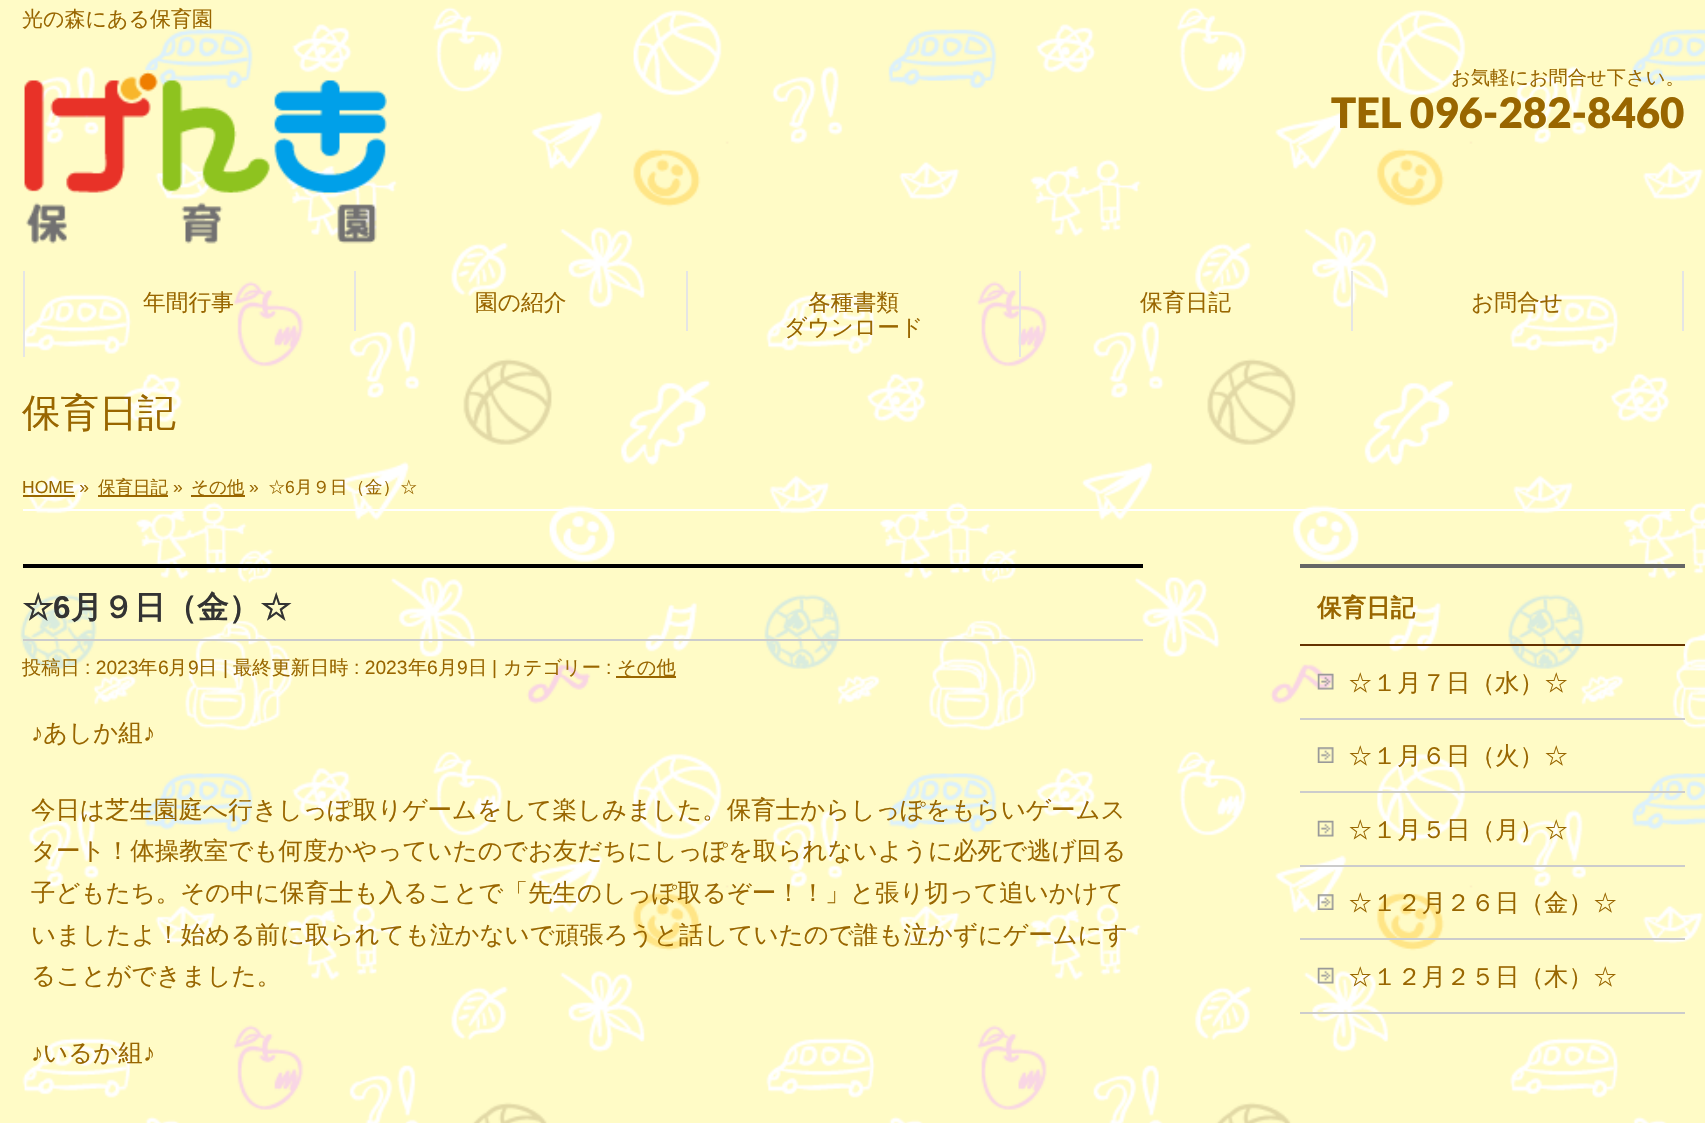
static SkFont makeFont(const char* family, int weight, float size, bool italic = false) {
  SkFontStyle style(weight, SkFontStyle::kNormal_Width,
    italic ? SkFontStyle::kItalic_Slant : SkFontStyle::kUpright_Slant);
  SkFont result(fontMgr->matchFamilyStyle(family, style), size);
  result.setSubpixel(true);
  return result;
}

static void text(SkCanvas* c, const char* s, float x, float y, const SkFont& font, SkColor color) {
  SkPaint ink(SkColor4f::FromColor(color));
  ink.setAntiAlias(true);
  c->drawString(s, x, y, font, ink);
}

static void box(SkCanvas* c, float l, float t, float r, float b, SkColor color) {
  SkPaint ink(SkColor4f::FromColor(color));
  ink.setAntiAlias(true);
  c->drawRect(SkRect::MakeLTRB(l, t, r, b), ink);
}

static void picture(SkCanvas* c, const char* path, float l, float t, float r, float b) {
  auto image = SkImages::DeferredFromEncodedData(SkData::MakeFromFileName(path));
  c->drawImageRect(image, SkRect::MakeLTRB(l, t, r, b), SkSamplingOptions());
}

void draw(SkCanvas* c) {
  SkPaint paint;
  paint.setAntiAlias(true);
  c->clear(0xffffffff);
  picture(c, "img_01.png", 0, 0, 1705, 1123);
  SkFont face1 = makeFont("WenQuanYi Zen Hei", 500, 21);
  text(c, "光の森にある保育園", 22, 26, face1, 0xff996600);
  picture(c, "img_02.png", 24, 70, 387, 244);
  SkFont face2 = makeFont("WenQuanYi Zen Hei", 500, 19.25f);
  text(c, "お気軽にお問合せ下さい。", 1451, 84, face2, 0xff996600);
  SkFont face3 = makeFont("Lato", 900, 42);
  text(c, "TEL 096-282-8460", 1331, 128, face3, 0xff996600);
  box(c, 23, 271, 25, 357, 0xffe5e5e5);
  box(c, 354, 271, 356, 331, 0xffe5e5e5);
  SkFont face4 = makeFont("WenQuanYi Zen Hei", 500, 22.75f);
  text(c, "年間行事", 143, 310, face4, 0xff996600);
  box(c, 686, 271, 688, 331, 0xffe5e5e5);
  text(c, "園の紹介", 475, 310, face4, 0xff996600);
  box(c, 1019, 271, 1021, 357, 0xffe5e5e5);
  text(c, "各種書類", 808, 310, face4, 0xff996600);
  text(c, "ダウンロード", 784, 335, face4, 0xff996600);
  box(c, 1351, 271, 1353, 331, 0xffe5e5e5);
  text(c, "保育日記", 1140, 310, face4, 0xff996600);
  box(c, 1682, 271, 1684, 331, 0xffe5e5e5);
  text(c, "お問合せ", 1471, 310, face4, 0xff996600);
  SkFont face5 = makeFont("WenQuanYi Zen Hei", 500, 38.5f);
  text(c, "保育日記", 22, 426, face5, 0xff996600);
  box(c, 23, 509, 1685, 511, 0xffffffff);
  SkFont face6 = makeFont("Liberation Sans", 400, 17.5f);
  text(c, "HOME »", 22, 493, face6, 0xff996600);
  box(c, 23, 495, 75, 497, 0xff996600);
  box(c, 98, 495, 168, 497, 0xff996600);
  SkFont face7 = makeFont("WenQuanYi Zen Hei", 500, 17.5f);
  text(c, "保育日記", 98, 493, face7, 0xff996600);
  text(c, "»", 173, 493, face6, 0xff996600);
  box(c, 191, 495, 245, 497, 0xff996600);
  text(c, "その他", 191, 493, face7, 0xff996600);
  text(c, "»", 249, 493, face6, 0xff996600);
  text(c, "☆", 268, 493, face7, 0xff996600);
  text(c, "6", 285, 493, face6, 0xff996600);
  text(c, "月９日（金）☆", 295, 493, face7, 0xff996600);
  box(c, 23, 564, 1143, 568, 0xff000000);
  box(c, 23, 639, 1143, 641, 0xffcccccc);
  SkFont face8 = makeFont("WenQuanYi Zen Hei", 700, 31.5f);
  text(c, "☆", 22, 618, face8, 0xff333333);
  SkFont face9 = makeFont("Liberation Sans", 700, 31.5f);
  text(c, "6", 53, 618, face9, 0xff333333);
  text(c, "月９日（金）☆", 71, 618, face8, 0xff333333);
  text(c, "投稿日", 22, 674, face2, 0xff996600);
  SkFont face10 = makeFont("Liberation Sans", 400, 19.25f);
  text(c, ": 2023", 85, 674, face10, 0xff996600);
  text(c, "年", 138, 674, face2, 0xff996600);
  text(c, "6", 158, 674, face10, 0xff996600);
  text(c, "月", 168, 674, face2, 0xff996600);
  text(c, "9", 188, 674, face10, 0xff996600);
  text(c, "日", 198, 674, face2, 0xff996600);
  text(c, "|", 223, 674, face10, 0xff996600);
  text(c, "最終更新日時", 233, 674, face2, 0xff996600);
  text(c, ": 2023", 354, 674, face10, 0xff996600);
  text(c, "年", 408, 674, face2, 0xff996600);
  text(c, "6", 427, 674, face10, 0xff996600);
  text(c, "月", 438, 674, face2, 0xff996600);
  text(c, "9", 457, 674, face10, 0xff996600);
  text(c, "日", 468, 674, face2, 0xff996600);
  text(c, "|", 492, 674, face10, 0xff996600);
  text(c, "カテゴリー", 503, 674, face2, 0xff996600);
  text(c, ":", 606, 674, face10, 0xff996600);
  box(c, 616, 676, 676, 678, 0xff996600);
  text(c, "その他", 617, 674, face2, 0xff996600);
  SkFont face11 = makeFont("Liberation Sans", 400, 24.5f);
  text(c, "♪", 31, 741, face11, 0xff996600);
  SkFont face12 = makeFont("WenQuanYi Zen Hei", 500, 24.5f);
  text(c, "あしか組", 43, 741, face12, 0xff996600);
  text(c, "♪", 143, 741, face11, 0xff996600);
  text(c, "今日は芝生園庭へ行きしっぽ取りゲームをして楽しみました。保育士からしっぽをもらいゲームス", 31, 818, face12, 0xff996600);
  text(c, "タート！体操教室でも何度かやっていたのでお友だちにしっぽを取られないように必死で逃げ回る", 31, 859, face12, 0xff996600);
  text(c, "子どもたち。その中に保育士も入ることで「先生のしっぽ取るぞー！！」と張り切って追いかけて", 31, 901, face12, 0xff996600);
  text(c, "いましたよ！始める前に取られても泣かないで頑張ろうと話していたので誰も泣かずにゲームにす", 31, 943, face12, 0xff996600);
  text(c, "ることができました。", 31, 984, face12, 0xff996600);
  text(c, "♪", 31, 1061, face11, 0xff996600);
  text(c, "いるか組", 43, 1061, face12, 0xff996600);
  text(c, "♪", 143, 1061, face11, 0xff996600);
  box(c, 1300, 564, 1685, 568, 0xff666666);
  box(c, 1300, 644, 1685, 646, 0xff663300);
  SkFont face13 = makeFont("WenQuanYi Zen Hei", 700, 24.5f);
  text(c, "保育日記", 1317, 616, face13, 0xff996600);
  box(c, 1300, 718, 1685, 720, 0xffcccccc);
  picture(c, "img_03.png", 1317, 673, 1334, 690);
  text(c, "☆１月７日（水）☆", 1348, 691, face12, 0xff996600);
  box(c, 1300, 791, 1685, 793, 0xffcccccc);
  picture(c, "img_04.png", 1317, 747, 1334, 763);
  text(c, "☆１月６日（火）☆", 1348, 764, face12, 0xff996600);
  box(c, 1300, 865, 1685, 867, 0xffcccccc);
  picture(c, "img_05.png", 1317, 820, 1334, 837);
  text(c, "☆１月５日（月）☆", 1348, 838, face12, 0xff996600);
  box(c, 1300, 938, 1685, 940, 0xffcccccc);
  picture(c, "img_06.png", 1317, 894, 1334, 910);
  text(c, "☆１２月２６日（金）☆", 1348, 911, face12, 0xff996600);
  box(c, 1300, 1012, 1685, 1014, 0xffcccccc);
  picture(c, "img_07.png", 1317, 967, 1334, 984);
  text(c, "☆１２月２５日（木）☆", 1348, 985, face12, 0xff996600);
}
